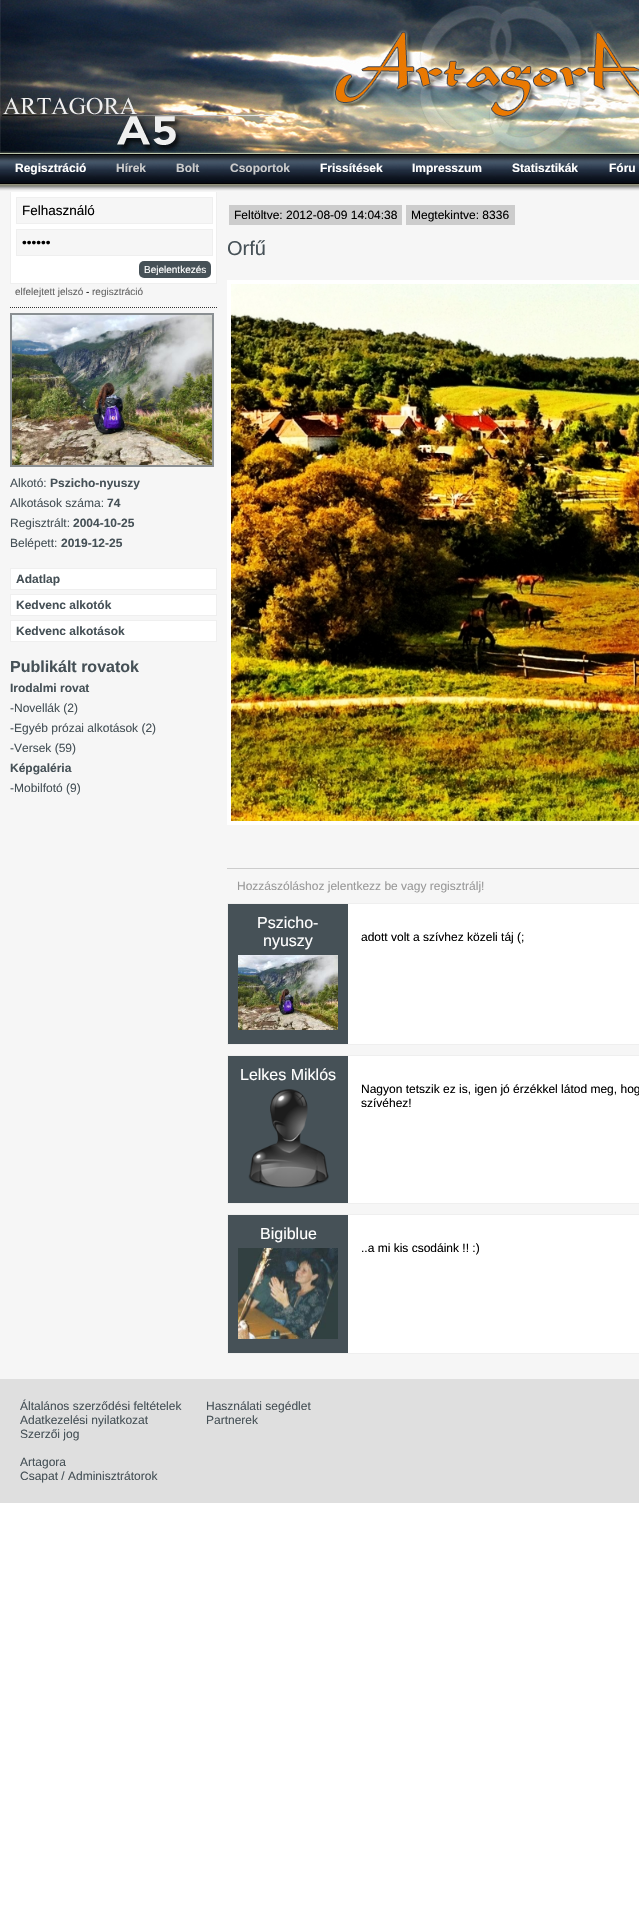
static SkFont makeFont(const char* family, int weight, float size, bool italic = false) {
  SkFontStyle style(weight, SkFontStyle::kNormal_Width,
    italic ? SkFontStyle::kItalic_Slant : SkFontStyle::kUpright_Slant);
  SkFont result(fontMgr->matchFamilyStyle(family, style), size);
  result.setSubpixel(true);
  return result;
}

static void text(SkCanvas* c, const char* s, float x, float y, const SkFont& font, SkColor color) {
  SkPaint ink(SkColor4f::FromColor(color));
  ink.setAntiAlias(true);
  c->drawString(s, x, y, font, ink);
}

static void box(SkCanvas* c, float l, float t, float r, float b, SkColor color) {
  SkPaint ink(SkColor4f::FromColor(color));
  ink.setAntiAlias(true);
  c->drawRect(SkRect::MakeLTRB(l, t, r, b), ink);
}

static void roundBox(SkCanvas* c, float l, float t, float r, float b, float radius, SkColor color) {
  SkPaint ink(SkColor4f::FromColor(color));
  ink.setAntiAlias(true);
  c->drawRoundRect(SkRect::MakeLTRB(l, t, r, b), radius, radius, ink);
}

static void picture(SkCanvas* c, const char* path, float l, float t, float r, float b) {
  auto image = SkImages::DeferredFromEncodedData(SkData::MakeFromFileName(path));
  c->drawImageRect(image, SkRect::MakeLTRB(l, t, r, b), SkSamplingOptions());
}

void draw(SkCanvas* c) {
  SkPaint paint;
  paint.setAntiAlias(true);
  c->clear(0xffffffff);
  box(c, 0, 191, 639, 1379, 0xfff6f6f6);
  picture(c, "img_01.png", 0, 0, 639, 153);
  picture(c, "img_02.png", 0, 153, 639, 191);
  SkFont face1 = makeFont("Liberation Sans", 700, 12);
  text(c, "Regisztráció", 15, 172, face1, 0xffffffff);
  text(c, "Hírek", 116, 172, face1, 0xffcccccc);
  text(c, "Bolt", 176, 172, face1, 0xffcccccc);
  text(c, "Csoportok", 230, 172, face1, 0xffcccccc);
  text(c, "Frissítések", 320, 172, face1, 0xffffffff);
  text(c, "Impresszum", 412, 172, face1, 0xffffffff);
  text(c, "Statisztikák", 512, 172, face1, 0xffffffff);
  text(c, "Fóru", 609, 172, face1, 0xffffffff);
  box(c, 11, 192, 216, 283, 0xffffffff);
  box(c, 216, 192, 217, 284, 0xffefefef);
  box(c, 10, 283, 217, 284, 0xffefefef);
  box(c, 10, 192, 11, 284, 0xffefefef);
  paint.setColor(0xfff6f6f6);
  c->drawRect(SkRect::MakeLTRB(16.5f, 197.5f, 212.5f, 223.5f), paint);
  paint.setStyle(SkPaint::kStroke_Style);
  paint.setStrokeWidth(1);
  paint.setColor(0xffefefef);
  c->drawRect(SkRect::MakeLTRB(16.5f, 197.5f, 212.5f, 223.5f), paint);
  SkFont face2 = makeFont("Liberation Sans", 400, 13.5f);
  text(c, "Felhasználó", 22, 215, face2, 0xff000000);
  paint.setStyle(SkPaint::kFill_Style);
  paint.setColor(0xfff6f6f6);
  c->drawRect(SkRect::MakeLTRB(16.5f, 229.5f, 212.5f, 255.5f), paint);
  paint.setStyle(SkPaint::kStroke_Style);
  paint.setColor(0xffefefef);
  c->drawRect(SkRect::MakeLTRB(16.5f, 229.5f, 212.5f, 255.5f), paint);
  text(c, "••••••", 22, 247, face2, 0xff000000);
  roundBox(c, 139, 261, 211, 278, 5, 0xff465157);
  SkFont face3 = makeFont("Liberation Sans", 400, 10);
  text(c, "Bejelentkezés", 144, 273, face3, 0xffffffff);
  text(c, "elfelejtett jelszó", 15, 295, face3, 0xff666666);
  text(c, "-", 86, 295, face3, 0xff000000);
  text(c, "regisztráció", 92, 295, face3, 0xff666666);
  paint.setColor(0xff333333);
  paint.setPathEffect(SkDashPathEffect::Make({{1, 1}}, 0));
  c->drawPath(SkPathBuilder().moveTo(10, 307.5f).lineTo(217, 307.5f).detach(), paint);
  paint.setPathEffect(nullptr);
  paint.setStrokeWidth(2);
  paint.setColor(0xff8a8f92);
  c->drawRect(SkRect::MakeLTRB(11, 314, 213, 466), paint);
  picture(c, "img_03.png", 12, 315, 212, 465);
  SkFont face4 = makeFont("Liberation Sans", 400, 12);
  text(c, "Alkotó:", 10, 487, face4, 0xff465157);
  text(c, "Pszicho-nyuszy", 50, 487, face1, 0xff465157);
  text(c, "Alkotások száma:", 10, 507, face4, 0xff465157);
  text(c, "74", 107, 507, face1, 0xff465157);
  text(c, "Regisztrált:", 10, 527, face4, 0xff465157);
  text(c, "2004-10-25", 73, 527, face1, 0xff465157);
  text(c, "Belépett:", 10, 547, face4, 0xff465157);
  text(c, "2019-12-25", 61, 547, face1, 0xff465157);
  paint.setStyle(SkPaint::kFill_Style);
  paint.setColor(0xffffffff);
  c->drawRect(SkRect::MakeLTRB(10.5f, 568.5f, 216.5f, 589.5f), paint);
  paint.setStyle(SkPaint::kStroke_Style);
  paint.setStrokeWidth(1);
  paint.setColor(0xffefefef);
  c->drawRect(SkRect::MakeLTRB(10.5f, 568.5f, 216.5f, 589.5f), paint);
  text(c, "Adatlap", 16, 583, face1, 0xff465157);
  paint.setStyle(SkPaint::kFill_Style);
  paint.setColor(0xffffffff);
  c->drawRect(SkRect::MakeLTRB(10.5f, 594.5f, 216.5f, 615.5f), paint);
  paint.setStyle(SkPaint::kStroke_Style);
  paint.setColor(0xffefefef);
  c->drawRect(SkRect::MakeLTRB(10.5f, 594.5f, 216.5f, 615.5f), paint);
  text(c, "Kedvenc alkotók", 16, 609, face1, 0xff465157);
  paint.setStyle(SkPaint::kFill_Style);
  paint.setColor(0xffffffff);
  c->drawRect(SkRect::MakeLTRB(10.5f, 620.5f, 216.5f, 641.5f), paint);
  paint.setStyle(SkPaint::kStroke_Style);
  paint.setColor(0xffefefef);
  c->drawRect(SkRect::MakeLTRB(10.5f, 620.5f, 216.5f, 641.5f), paint);
  text(c, "Kedvenc alkotások", 16, 635, face1, 0xff465157);
  SkFont face5 = makeFont("Liberation Sans", 700, 16);
  text(c, "Publikált rovatok", 10, 672, face5, 0xff465157);
  text(c, "Irodalmi rovat", 10, 692, face1, 0xff465157);
  text(c, "-Novellák (2)", 10, 712, face4, 0xff465157);
  text(c, "-Egyéb prózai alkotások (2)", 10, 732, face4, 0xff465157);
  text(c, "-Versek (59)", 10, 752, face4, 0xff465157);
  text(c, "Képgaléria", 10, 772, face1, 0xff465157);
  text(c, "-Mobilfotó (9)", 10, 792, face4, 0xff465157);
  box(c, 229, 205, 402, 225, 0xffcccccc);
  text(c, "Feltöltve: 2012-08-09 14:04:38", 234, 219, face4, 0xff000000);
  box(c, 406, 205, 515, 225, 0xffcccccc);
  text(c, "Megtekintve: 8336", 411, 219, face4, 0xff000000);
  SkFont face6 = makeFont("Liberation Sans", 400, 20);
  text(c, "Orfű", 227, 255, face6, 0xff465157);
  paint.setStrokeWidth(4);
  paint.setColor(0xffffffff);
  c->drawRect(SkRect::MakeLTRB(229, 282, 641, 823), paint);
  picture(c, "img_04.png", 231, 284, 639, 821);
  box(c, 227, 868, 639, 869, 0xffcccccc);
  text(c, "Hozzászóláshoz jelentkezz be vagy regisztrálj!", 237, 890, face4, 0xff999999);
  box(c, 348, 904, 639, 1044, 0xffffffff);
  paint.setStrokeWidth(1);
  paint.setColor(0xffefefef);
  c->drawRect(SkRect::MakeLTRB(227.5f, 903.5f, 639.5f, 1044.5f), paint);
  box(c, 228, 904, 348, 1044, 0xff465157);
  SkFont face7 = makeFont("Liberation Sans", 400, 16);
  text(c, "Pszicho-", 257, 928, face7, 0xffffffff);
  text(c, "nyuszy", 263, 946, face7, 0xffffffff);
  picture(c, "img_05.png", 238, 955, 338, 1030);
  text(c, "adott volt a szívhez közeli táj (;", 361, 941, face4, 0xff000000);
  box(c, 348, 1056, 639, 1203, 0xffffffff);
  c->drawRect(SkRect::MakeLTRB(227.5f, 1055.5f, 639.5f, 1203.5f), paint);
  box(c, 228, 1056, 348, 1203, 0xff465157);
  text(c, "Lelkes Miklós", 240, 1080, face7, 0xffffffff);
  picture(c, "img_06.png", 248, 1089, 329, 1188);
  text(c, "Nagyon tetszik ez is, igen jó érzékkel látod meg, hog", 361, 1093, face4, 0xff000000);
  text(c, "szívéhez!", 361, 1107, face4, 0xff000000);
  box(c, 348, 1215, 639, 1353, 0xffffffff);
  c->drawRect(SkRect::MakeLTRB(227.5f, 1214.5f, 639.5f, 1353.5f), paint);
  box(c, 228, 1215, 348, 1353, 0xff465157);
  text(c, "Bigiblue", 260, 1239, face7, 0xffffffff);
  picture(c, "img_07.png", 238, 1248, 338, 1339);
  text(c, "..a mi kis csodáink !! :)", 361, 1252, face4, 0xff000000);
  box(c, 0, 1379, 639, 1503, 0xffdfdfdf);
  text(c, "Általános szerződési feltételek", 20, 1410, face4, 0xff465157);
  text(c, "Adatkezelési nyilatkozat", 20, 1424, face4, 0xff465157);
  text(c, "Szerzői jog", 20, 1438, face4, 0xff465157);
  text(c, "Artagora", 20, 1466, face4, 0xff465157);
  text(c, "Csapat / Adminisztrátorok", 20, 1480, face4, 0xff465157);
  text(c, "Használati segédlet", 206, 1410, face4, 0xff465157);
  text(c, "Partnerek", 206, 1424, face4, 0xff465157);
}
